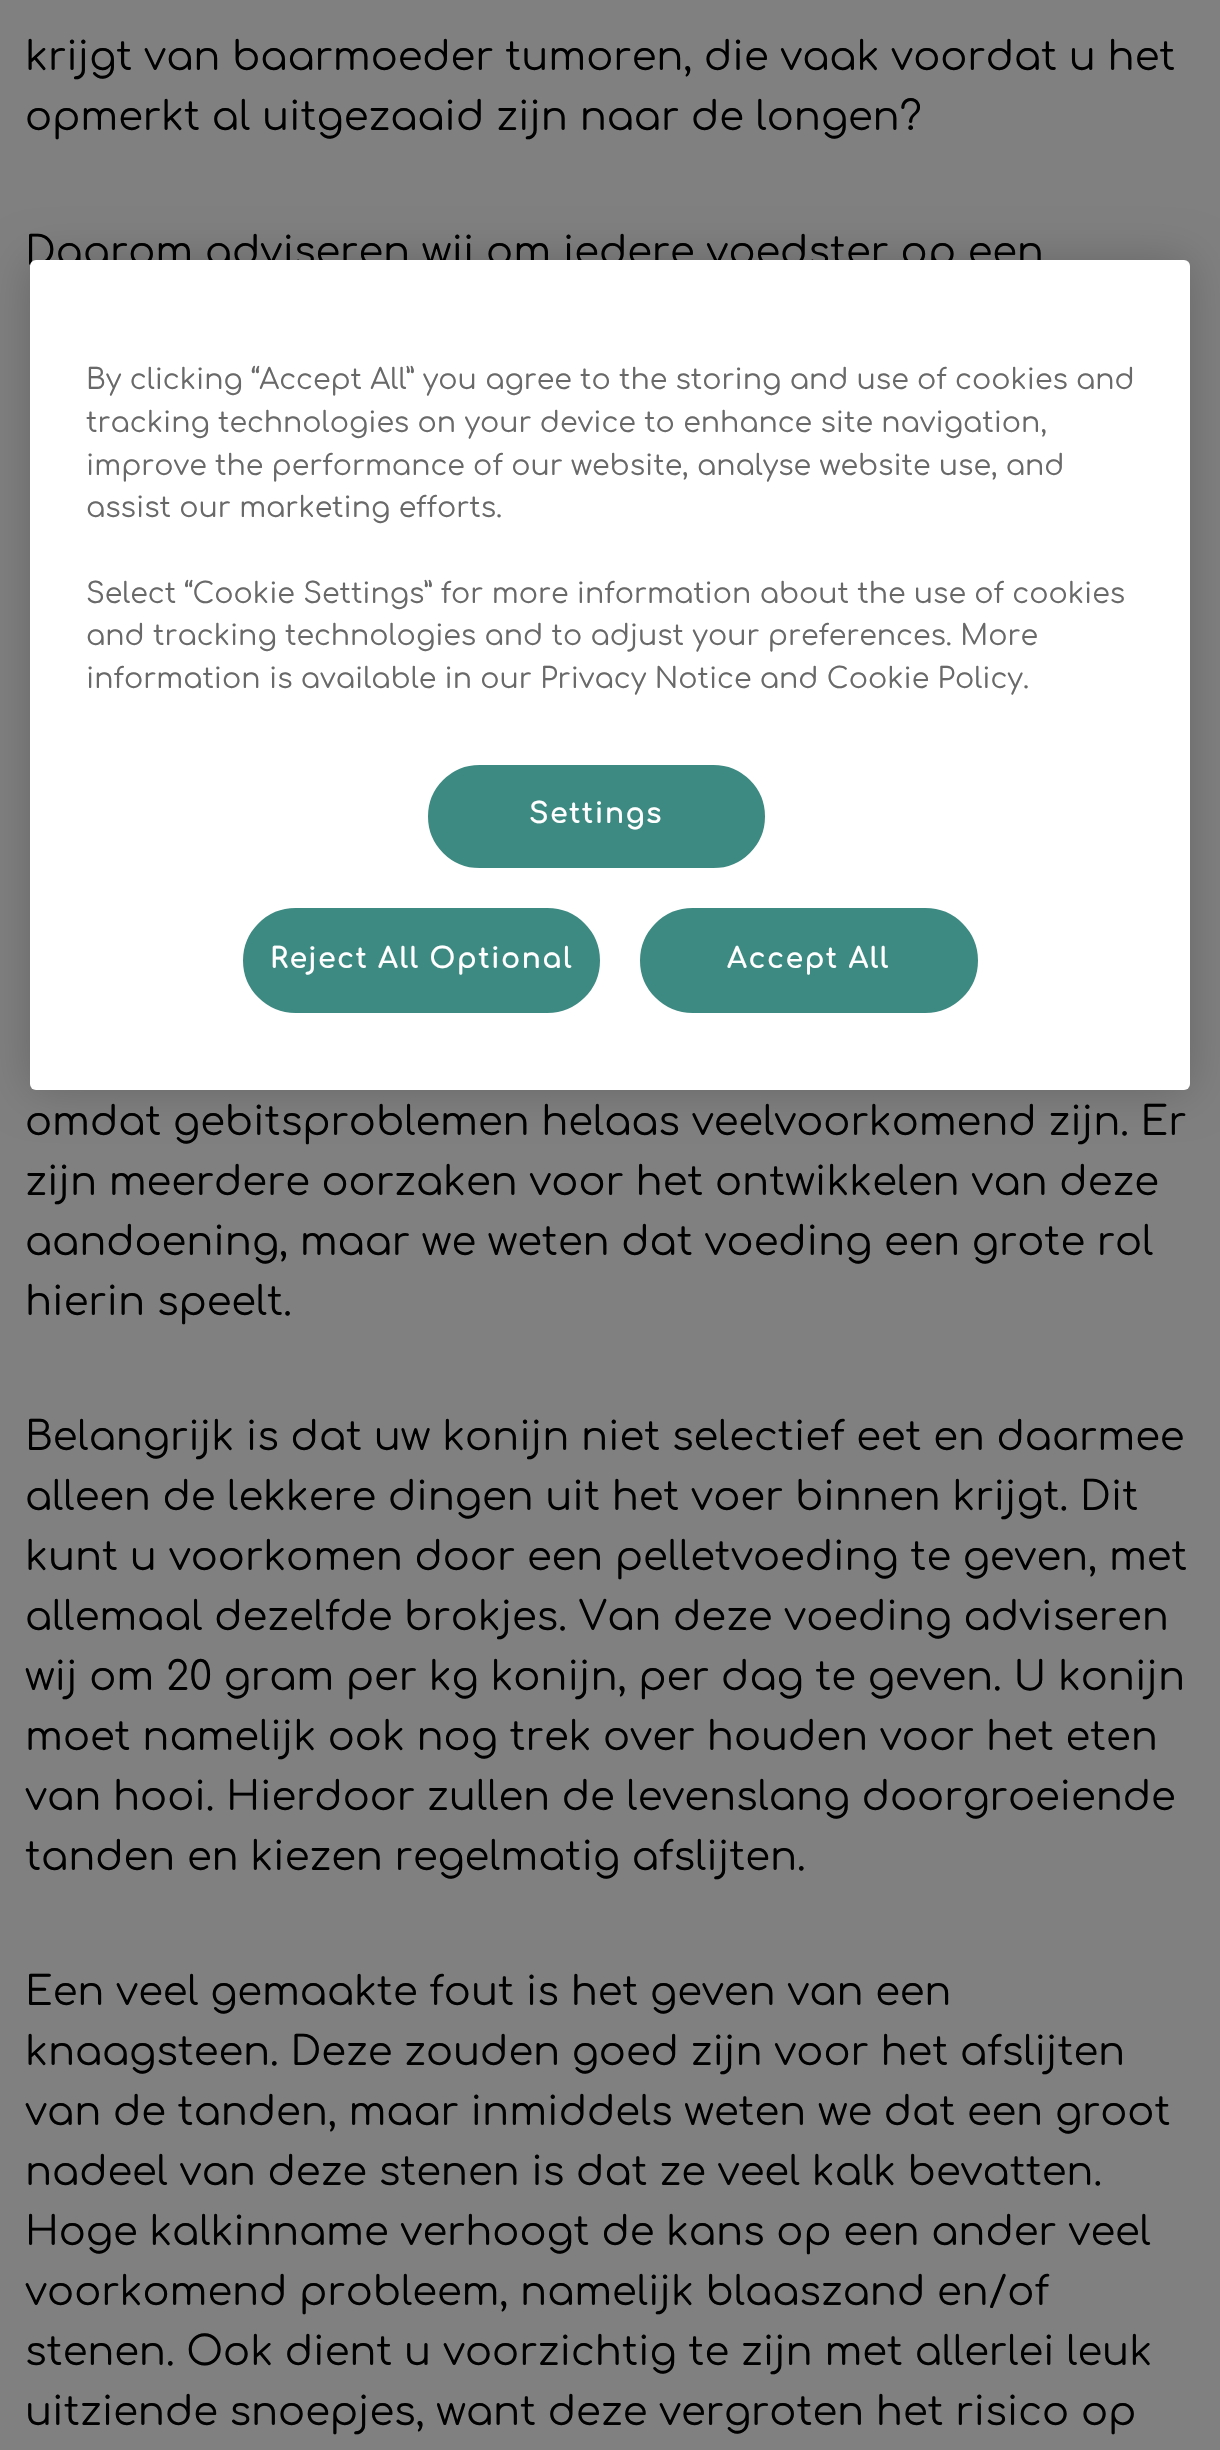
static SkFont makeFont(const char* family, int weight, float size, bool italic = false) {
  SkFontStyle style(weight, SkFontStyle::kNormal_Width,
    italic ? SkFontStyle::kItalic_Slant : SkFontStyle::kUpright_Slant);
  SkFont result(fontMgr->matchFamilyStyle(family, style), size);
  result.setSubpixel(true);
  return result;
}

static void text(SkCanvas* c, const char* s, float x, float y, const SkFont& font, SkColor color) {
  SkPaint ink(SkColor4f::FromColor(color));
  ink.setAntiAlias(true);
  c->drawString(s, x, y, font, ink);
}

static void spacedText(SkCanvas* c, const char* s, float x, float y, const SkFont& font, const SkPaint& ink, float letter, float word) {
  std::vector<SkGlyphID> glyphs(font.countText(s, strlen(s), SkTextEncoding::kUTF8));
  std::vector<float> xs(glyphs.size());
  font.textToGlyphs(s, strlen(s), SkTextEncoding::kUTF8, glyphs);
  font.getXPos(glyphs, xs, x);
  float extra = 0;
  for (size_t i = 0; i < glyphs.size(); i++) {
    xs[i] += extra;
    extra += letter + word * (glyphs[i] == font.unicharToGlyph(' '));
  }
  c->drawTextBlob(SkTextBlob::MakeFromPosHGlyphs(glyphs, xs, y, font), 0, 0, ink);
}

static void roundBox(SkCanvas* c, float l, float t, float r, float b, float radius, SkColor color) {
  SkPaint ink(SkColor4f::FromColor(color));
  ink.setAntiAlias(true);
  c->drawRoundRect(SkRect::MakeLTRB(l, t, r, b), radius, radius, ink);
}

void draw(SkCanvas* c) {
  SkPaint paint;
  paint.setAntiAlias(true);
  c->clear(0xff808080);
  SkFont face1 = makeFont("Comfortaa", 400, 40);
  text(c, "krijgt van baarmoeder tumoren, die vaak voordat u het", 25, 70, face1, 0xff000000);
  text(c, "opmerkt al uitgezaaid zijn naar de longen?", 25, 130, face1, 0xff000000);
  text(c, "Daarom adviseren wij om iedere voedster op een", 25, 265, face1, 0xff000000);
  text(c, "omdat gebitsproblemen helaas veelvoorkomend zijn. Er", 25, 1135, face1, 0xff000000);
  text(c, "zijn meerdere oorzaken voor het ontwikkelen van deze", 25, 1195, face1, 0xff000000);
  text(c, "aandoening, maar we weten dat voeding een grote rol", 25, 1255, face1, 0xff000000);
  text(c, "hierin speelt.", 25, 1315, face1, 0xff000000);
  text(c, "Belangrijk is dat uw konijn niet selectief eet en daarmee", 25, 1450, face1, 0xff000000);
  text(c, "alleen de lekkere dingen uit het voer binnen krijgt. Dit", 25, 1510, face1, 0xff000000);
  text(c, "kunt u voorkomen door een pelletvoeding te geven, met", 25, 1570, face1, 0xff000000);
  text(c, "allemaal dezelfde brokjes. Van deze voeding adviseren", 25, 1630, face1, 0xff000000);
  text(c, "wij om 20 gram per kg konijn, per dag te geven. U konijn", 25, 1690, face1, 0xff000000);
  text(c, "moet namelijk ook nog trek over houden voor het eten", 25, 1750, face1, 0xff000000);
  text(c, "van hooi. Hierdoor zullen de levenslang doorgroeiende", 25, 1810, face1, 0xff000000);
  text(c, "tanden en kiezen regelmatig afslijten.", 25, 1870, face1, 0xff000000);
  text(c, "Een veel gemaakte fout is het geven van een", 25, 2005, face1, 0xff000000);
  text(c, "knaagsteen. Deze zouden goed zijn voor het afslijten", 25, 2065, face1, 0xff000000);
  text(c, "van de tanden, maar inmiddels weten we dat een groot", 25, 2125, face1, 0xff000000);
  text(c, "nadeel van deze stenen is dat ze veel kalk bevatten.", 25, 2185, face1, 0xff000000);
  text(c, "Hoge kalkinname verhoogt de kans op een ander veel", 25, 2245, face1, 0xff000000);
  text(c, "voorkomend probleem, namelijk blaaszand en/of", 25, 2305, face1, 0xff000000);
  text(c, "stenen. Ook dient u voorzichtig te zijn met allerlei leuk", 25, 2365, face1, 0xff000000);
  text(c, "uitziende snoepjes, want deze vergroten het risico op", 25, 2425, face1, 0xff000000);
  paint.setColor(0x33000000);
  paint.setMaskFilter(SkMaskFilter::MakeBlur(kNormal_SkBlurStyle, 22.5f));
  c->drawRoundRect(SkRect::MakeLTRB(30, 260, 1190, 1090), 6, 6, paint);
  paint.setMaskFilter(nullptr);
  roundBox(c, 30, 260, 1190, 1090, 6, 0xffffffff);
  SkFont face2 = makeFont("Comfortaa", 400, 28.45f);
  text(c, "By clicking “Accept All” you agree to the storing and use of cookies and", 86, 389, face2, 0xff696969);
  text(c, "tracking technologies on your device to enhance site navigation,", 86, 432, face2, 0xff696969);
  text(c, "improve the performance of our website, analyse website use, and", 86, 475, face2, 0xff696969);
  text(c, "assist our marketing efforts.", 86, 517, face2, 0xff696969);
  text(c, "Select “Cookie Settings” for more information about the use of cookies", 86, 603, face2, 0xff696969);
  text(c, "and tracking technologies and to adjust your preferences. More", 86, 645, face2, 0xff696969);
  text(c, "information is available in our Privacy Notice and Cookie Policy.", 86, 688, face2, 0xff696969);
  paint.setColor(0xff3d8a82);
  c->drawRoundRect(SkRect::MakeLTRB(429.5f, 766.5f, 763.5f, 866.5f), 50, 50, paint);
  paint.setStyle(SkPaint::kStroke_Style);
  paint.setStrokeWidth(3);
  c->drawRoundRect(SkRect::MakeLTRB(429.5f, 766.5f, 763.5f, 866.5f), 50, 50, paint);
  SkFont face3 = makeFont("Comfortaa", 700, 28.45f);
  paint.setStyle(SkPaint::kFill_Style);
  paint.setColor(0xffffffff);
  spacedText(c, "Settings", 529, 823, face3, paint, 1.4f, 0);
  paint.setColor(0xff3d8a82);
  c->drawRoundRect(SkRect::MakeLTRB(244.5f, 909.5f, 598.5f, 1011.5f), 51, 51, paint);
  paint.setStyle(SkPaint::kStroke_Style);
  c->drawRoundRect(SkRect::MakeLTRB(244.5f, 909.5f, 598.5f, 1011.5f), 51, 51, paint);
  paint.setStyle(SkPaint::kFill_Style);
  paint.setColor(0xffffffff);
  spacedText(c, "Reject All Optional", 270, 968, face3, paint, 1.4f, 0);
  paint.setColor(0xff3d8a82);
  c->drawRoundRect(SkRect::MakeLTRB(641.5f, 909.5f, 976.5f, 1011.5f), 51, 51, paint);
  paint.setStyle(SkPaint::kStroke_Style);
  c->drawRoundRect(SkRect::MakeLTRB(641.5f, 909.5f, 976.5f, 1011.5f), 51, 51, paint);
  paint.setStyle(SkPaint::kFill_Style);
  paint.setColor(0xffffffff);
  spacedText(c, "Accept All", 727, 968, face3, paint, 1.4f, 0);
}
